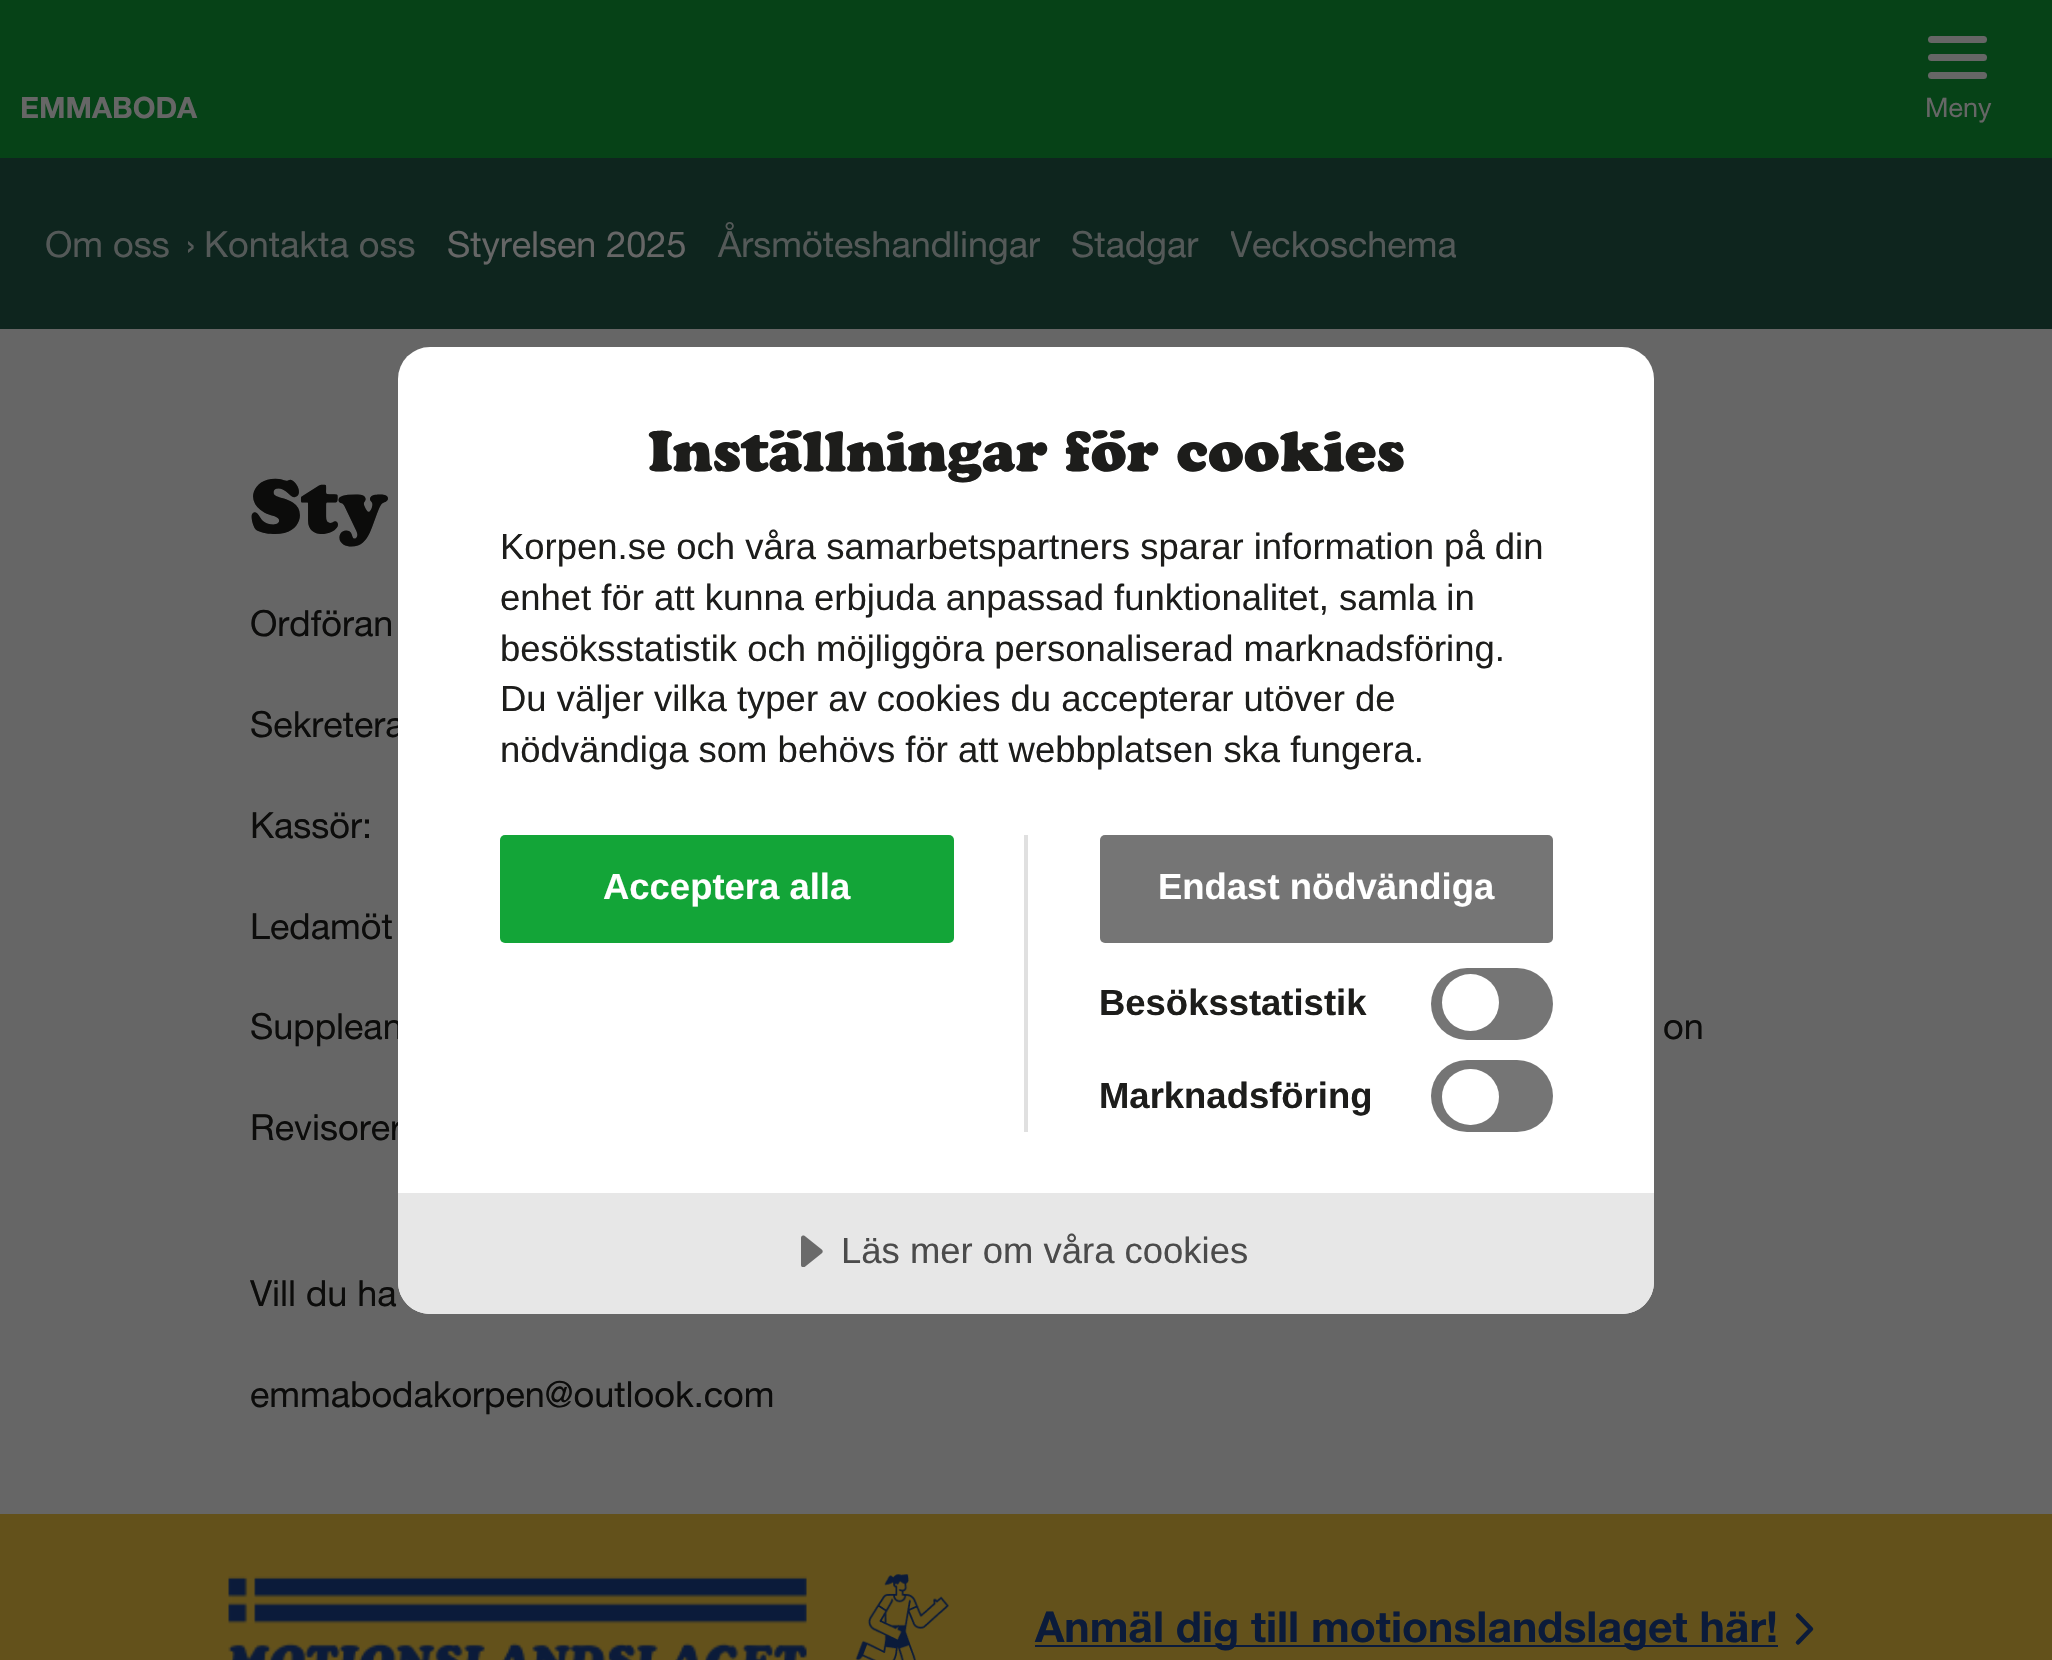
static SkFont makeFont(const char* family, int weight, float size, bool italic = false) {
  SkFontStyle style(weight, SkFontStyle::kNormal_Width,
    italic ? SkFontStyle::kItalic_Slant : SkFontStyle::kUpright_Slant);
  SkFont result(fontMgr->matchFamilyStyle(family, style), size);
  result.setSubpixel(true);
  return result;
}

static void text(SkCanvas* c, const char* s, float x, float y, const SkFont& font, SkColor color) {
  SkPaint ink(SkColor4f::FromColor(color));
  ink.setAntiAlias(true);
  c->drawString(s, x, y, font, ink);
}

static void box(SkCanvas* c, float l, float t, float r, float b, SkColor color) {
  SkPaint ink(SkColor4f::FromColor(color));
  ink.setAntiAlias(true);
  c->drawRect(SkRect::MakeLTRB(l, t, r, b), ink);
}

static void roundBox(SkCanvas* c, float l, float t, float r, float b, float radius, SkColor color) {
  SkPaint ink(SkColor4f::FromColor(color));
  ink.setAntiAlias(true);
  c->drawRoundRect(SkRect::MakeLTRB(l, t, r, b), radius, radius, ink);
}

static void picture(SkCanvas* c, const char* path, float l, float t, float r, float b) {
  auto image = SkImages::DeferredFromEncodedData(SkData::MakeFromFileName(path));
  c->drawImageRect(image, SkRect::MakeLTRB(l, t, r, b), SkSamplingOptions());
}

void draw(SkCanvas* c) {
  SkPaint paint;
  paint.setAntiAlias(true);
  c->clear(0xff666666);
  box(c, 0, 0, 2052, 158, 0xff064217);
  SkFont face1 = makeFont("Helvetica Neue", 700, 29.25f);
  text(c, "EMMABODA", 20, 118, face1, 0xff666666);
  roundBox(c, 1928, 36, 1987, 43, 3.5f, 0xff666666);
  roundBox(c, 1928, 54, 1987, 61, 3.5f, 0xff666666);
  roundBox(c, 1928, 72, 1987, 79, 3.5f, 0xff666666);
  SkFont face2 = makeFont("Helvetica Neue", 400, 27);
  text(c, "Meny", 1925, 117, face2, 0xff666666);
  box(c, 0, 158, 2052, 329, 0xff0e251e);
  SkFont face3 = makeFont("Helvetica Neue", 400, 36);
  text(c, "Om oss", 45, 257, face3, 0xff545958);
  text(c, "›", 186, 257, face3, 0xff545958);
  text(c, "Kontakta oss", 204, 257, face3, 0xff545958);
  text(c, "Styrelsen 2025", 447, 257, face3, 0xff666666);
  text(c, "Årsmöteshandlingar", 718, 257, face3, 0xff545958);
  text(c, "Stadgar", 1071, 257, face3, 0xff545958);
  c->save();
  c->clipRect(SkRect::MakeLTRB(1231, 203, 1456, 284));
  text(c, "Veckoschema", 1230, 257, face3, 0xff545958);
  c->restore();
  text(c, "Sekretera", 250, 737, face3, 0xff0c0c0b);
  text(c, "Supplean", 250, 1039, face3, 0xff0c0c0b);
  text(c, "Revisorer", 250, 1140, face3, 0xff0c0c0b);
  roundBox(c, 398, 347, 1654, 1314, 32, 0xffffffff);
  SkFont face4 = makeFont("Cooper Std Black", 900, 56.75f);
  text(c, "Inställningar för cookies", 648, 471, face4, 0xff1d1d1b);
  SkFont face5 = makeFont("Liberation Sans", 400, 36.45f);
  text(c, "Korpen.se och våra samarbetspartners sparar information på din", 500, 559, face5, 0xff1d1d1b);
  text(c, "enhet för att kunna erbjuda anpassad funktionalitet, samla in", 500, 610, face5, 0xff1d1d1b);
  text(c, "besöksstatistik och möjliggöra personaliserad marknadsföring.", 500, 661, face5, 0xff1d1d1b);
  text(c, "Du väljer vilka typer av cookies du accepterar utöver de", 500, 711, face5, 0xff1d1d1b);
  text(c, "nödvändiga som behövs för att webbplatsen ska fungera.", 500, 762, face5, 0xff1d1d1b);
  box(c, 1024, 835, 1028, 1132, 0xffe0e0e0);
  roundBox(c, 500, 835, 954, 943, 5, 0xff13a538);
  SkFont face6 = makeFont("Liberation Sans", 700, 36.45f);
  text(c, "Acceptera alla", 603, 899, face6, 0xffffffff);
  roundBox(c, 1100, 835, 1553, 943, 5, 0xff757575);
  text(c, "Endast nödvändiga", 1158, 899, face6, 0xffffffff);
  text(c, "Besöksstatistik", 1099, 1015, face6, 0xff1d1d1b);
  roundBox(c, 1431, 968, 1553, 1040, 36, 0xff757575);
  paint.setColor(0xffffffff);
  c->drawCircle(1470.5f, 1002.5f, 28.5f, paint);
  text(c, "Marknadsföring", 1099, 1108, face6, 0xff1d1d1b);
  roundBox(c, 1431, 1060, 1553, 1132, 36, 0xff757575);
  roundBox(c, 1442, 1069, 1499, 1125, 28, 0xffffffff);
  paint.setColor(0xffe7e7e7);
  c->drawPath(SkPathBuilder().moveTo(398, 1193).lineTo(1654, 1193).lineTo(1654, 1282).cubicTo(1654, 1299.5f, 1639.5f, 1314, 1622, 1314).lineTo(430, 1314).cubicTo(412.5f, 1314, 398, 1299.5f, 398, 1282).close().detach(), paint);
  picture(c, "img_01.png", 801, 1235, 823, 1267);
  text(c, "Läs mer om våra cookies", 841, 1263, face5, 0xff4b4b4b);
  SkFont face7 = makeFont("Cooper Std Black", 900, 76);
  text(c, "Sty", 250, 533, face7, 0xff0c0c0b);
  text(c, "Ordföran", 250, 636, face3, 0xff0c0c0b);
  text(c, "Kassör:", 250, 838, face3, 0xff0c0c0b);
  text(c, "Ledamöt", 250, 939, face3, 0xff0c0c0b);
  text(c, "on", 1663, 1039, face3, 0xff0c0c0b);
  text(c, "Vill du ha", 250, 1306, face3, 0xff0c0c0b);
  text(c, "emmabodakorpen@outlook.com", 250, 1407, face3, 0xff0c0c0b);
  box(c, 0, 1514, 2052, 1660, 0xff63511b);
  picture(c, "img_02.png", 228, 1576, 807, 1660);
  picture(c, "img_03.png", 855, 1574, 949, 1660);
  box(c, 1035, 1645, 1778, 1647, 0xff0b1b3a);
  SkFont face8 = makeFont("Helvetica Neue", 700, 42.75f);
  text(c, "Anmäl dig till motionslandslaget här!", 1035, 1642, face8, 0xff0b1b3a);
  paint.setStyle(SkPaint::kStroke_Style);
  paint.setStrokeWidth(4.5f);
  paint.setStrokeCap(SkPaint::kRound_Cap);
  paint.setStrokeJoin(SkPaint::kRound_Join);
  paint.setColor(0xff0b1b3a);
  c->drawPath(SkPathBuilder().moveTo(1798, 1642.5f).lineTo(1811, 1629).lineTo(1798, 1615.5f).detach(), paint);
}
